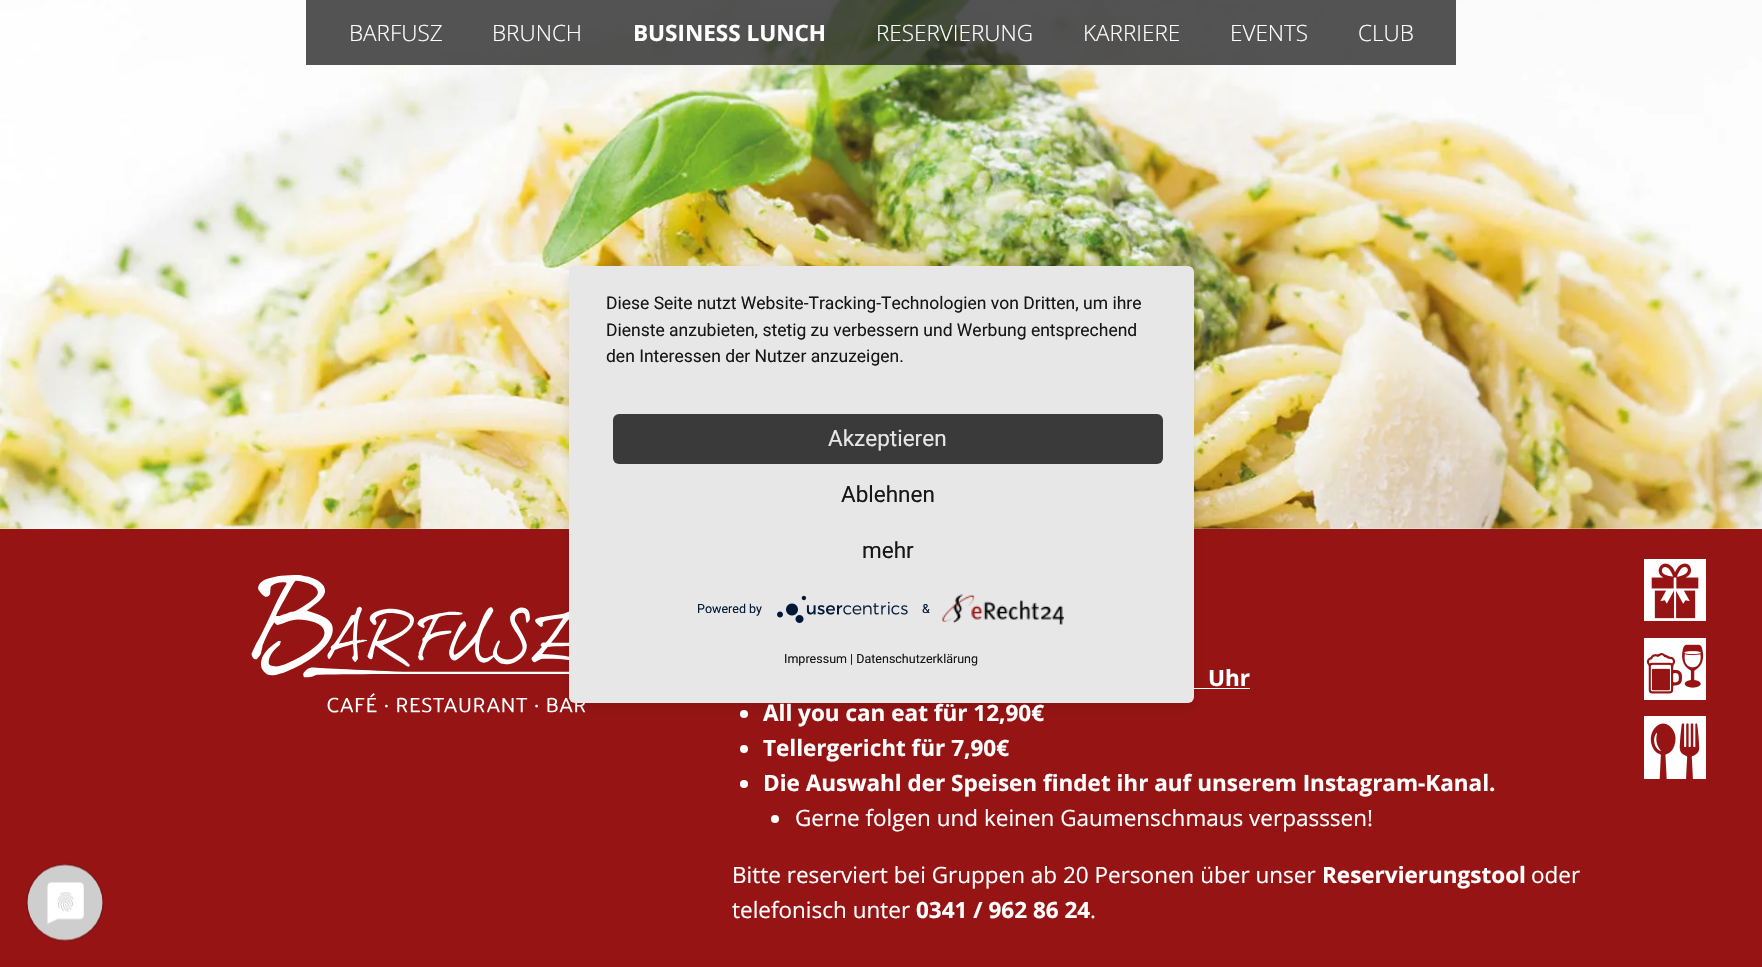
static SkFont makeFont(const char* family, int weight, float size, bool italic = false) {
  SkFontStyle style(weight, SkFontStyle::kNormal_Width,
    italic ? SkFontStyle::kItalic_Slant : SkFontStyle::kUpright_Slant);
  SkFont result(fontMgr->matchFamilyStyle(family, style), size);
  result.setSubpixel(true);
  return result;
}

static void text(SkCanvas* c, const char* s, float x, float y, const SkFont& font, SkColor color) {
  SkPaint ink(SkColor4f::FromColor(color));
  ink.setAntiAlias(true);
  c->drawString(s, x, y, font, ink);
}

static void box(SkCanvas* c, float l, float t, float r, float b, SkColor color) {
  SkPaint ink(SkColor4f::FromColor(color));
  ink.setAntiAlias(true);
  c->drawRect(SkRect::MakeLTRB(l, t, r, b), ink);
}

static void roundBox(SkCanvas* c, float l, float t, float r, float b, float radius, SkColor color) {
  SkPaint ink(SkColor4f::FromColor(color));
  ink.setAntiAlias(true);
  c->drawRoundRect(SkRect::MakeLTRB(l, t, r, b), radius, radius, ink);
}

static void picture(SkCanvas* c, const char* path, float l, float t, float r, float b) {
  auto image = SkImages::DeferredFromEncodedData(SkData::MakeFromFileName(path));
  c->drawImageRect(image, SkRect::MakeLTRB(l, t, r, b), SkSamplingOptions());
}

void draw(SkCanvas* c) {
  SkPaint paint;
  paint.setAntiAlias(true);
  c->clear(0xffffffff);
  picture(c, "img_01.png", 0, 0, 1762, 529);
  box(c, 306, 0, 1456, 65, 0xcc282828);
  SkFont face1 = makeFont("Open Sans", 300, 22.5f);
  text(c, "BARFUSZ", 349, 41, face1, 0xffffffff);
  text(c, "BRUNCH", 492, 41, face1, 0xffffffff);
  SkFont face2 = makeFont("Open Sans", 700, 22.5f);
  text(c, "BUSINESS LUNCH", 633, 41, face2, 0xffffffff);
  text(c, "RESERVIERUNG", 876, 41, face1, 0xffffffff);
  text(c, "KARRIERE", 1083, 41, face1, 0xffffffff);
  text(c, "EVENTS", 1230, 41, face1, 0xffffffff);
  text(c, "CLUB", 1358, 41, face1, 0xffffffff);
  box(c, 0, 529, 1762, 967, 0xff961414);
  picture(c, "img_05.png", 251, 575, 586, 713);
  box(c, 1194, 688, 1250, 689, 0xffffffff);
  paint.setColor(0xffffffff);
  c->drawCircle(744, 714, 4, paint);
  paint.setColor(0x1a000000);
  paint.setMaskFilter(SkMaskFilter::MakeBlur(kNormal_SkBlurStyle, 6));
  c->drawRoundRect(SkRect::MakeLTRB(569, 270, 1194, 706), 6, 6, paint);
  paint.setMaskFilter(nullptr);
  paint.setColor(0xffffffff);
  c->drawCircle(744, 749, 4, paint);
  c->save();
  c->clipPath(SkPathBuilder().moveTo(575, 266).lineTo(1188, 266).cubicTo(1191.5f, 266, 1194, 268.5f, 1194, 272).lineTo(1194, 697).cubicTo(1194, 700.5f, 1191.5f, 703, 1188, 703).lineTo(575, 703).cubicTo(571.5f, 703, 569, 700.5f, 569, 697).lineTo(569, 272).cubicTo(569, 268.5f, 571.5f, 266, 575, 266).close().detach(), true);
  paint.setColor(0x4d000000);
  paint.setMaskFilter(SkMaskFilter::MakeBlur(kNormal_SkBlurStyle, 22.5f));
  c->drawRect(SkRect::MakeLTRB(569, 274, 1194, 710), paint);
  paint.setMaskFilter(nullptr);
  c->restore();
  roundBox(c, 569, 266, 1194, 703, 6, 0xffe7e7e7);
  SkFont face3 = makeFont("Roboto", 400, 17.5f);
  text(c, "Diese Seite nutzt Website-Tracking-Technologien von Dritten, um ihre", 606, 309, face3, 0xff161616);
  text(c, "Dienste anzubieten, stetig zu verbessern und Werbung entsprechend", 606, 336, face3, 0xff161616);
  text(c, "den Interessen der Nutzer anzuzeigen.", 606, 362, face3, 0xff161616);
  roundBox(c, 613, 414, 1163, 464, 6, 0xff3a3a3a);
  SkFont face4 = makeFont("Roboto", 400, 22.5f);
  text(c, "Akzeptieren", 828, 446, face4, 0xffe6e6e6);
  text(c, "Ablehnen", 841, 502, face4, 0xff161616);
  text(c, "mehr", 862, 558, face4, 0xff161616);
  SkFont face5 = makeFont("Roboto", 400, 12.5f);
  text(c, "Powered by", 697, 613, face5, 0xff021836);
  picture(c, "img_02.png", 777, 595, 908, 623);
  text(c, "&", 922, 613, face5, 0xff021836);
  picture(c, "img_03.png", 942, 594, 1064, 625);
  text(c, "Impressum | Datenschutzerklärung", 784, 663, face5, 0xff161616);
  picture(c, "img_04.png", 26, 863, 104, 942);
  text(c, "Uhr", 1208, 686, face2, 0xffffffff);
  text(c, "All you can eat für 12,90€", 763, 721, face2, 0xffffffff);
  text(c, "Tellergericht für 7,90€", 763, 756, face2, 0xffffffff);
  paint.setColor(0xffffffff);
  c->drawCircle(744, 784, 4, paint);
  text(c, "Die Auswahl der Speisen findet ihr auf unserem Instagram-Kanal.", 763, 791, face2, 0xffffffff);
  c->drawCircle(775, 819, 4, paint);
  SkFont face6 = makeFont("Open Sans", 400, 22.5f);
  text(c, "Gerne folgen und keinen Gaumenschmaus verpasssen!", 795, 826, face6, 0xffffffff);
  text(c, "Bitte reserviert bei Gruppen ab 20 Personen über unser", 732, 883, face6, 0xffffffff);
  text(c, "Reservierungstool", 1322, 883, face2, 0xffffffff);
  text(c, "oder", 1531, 883, face6, 0xffffffff);
  text(c, "telefonisch unter", 732, 918, face6, 0xffffffff);
  text(c, "0341 / 962 86 24", 916, 918, face2, 0xffffffff);
  text(c, ".", 1090, 918, face6, 0xffffffff);
  box(c, 1644, 559, 1706, 621, 0xffffffff);
  picture(c, "img_06.png", 1651, 563, 1699, 619);
  box(c, 1644, 638, 1706, 700, 0xffffffff);
  picture(c, "img_07.png", 1646, 644, 1704, 694);
  box(c, 1644, 716, 1706, 779, 0xffffffff);
  picture(c, "img_08.png", 1650, 723, 1700, 779);
}
